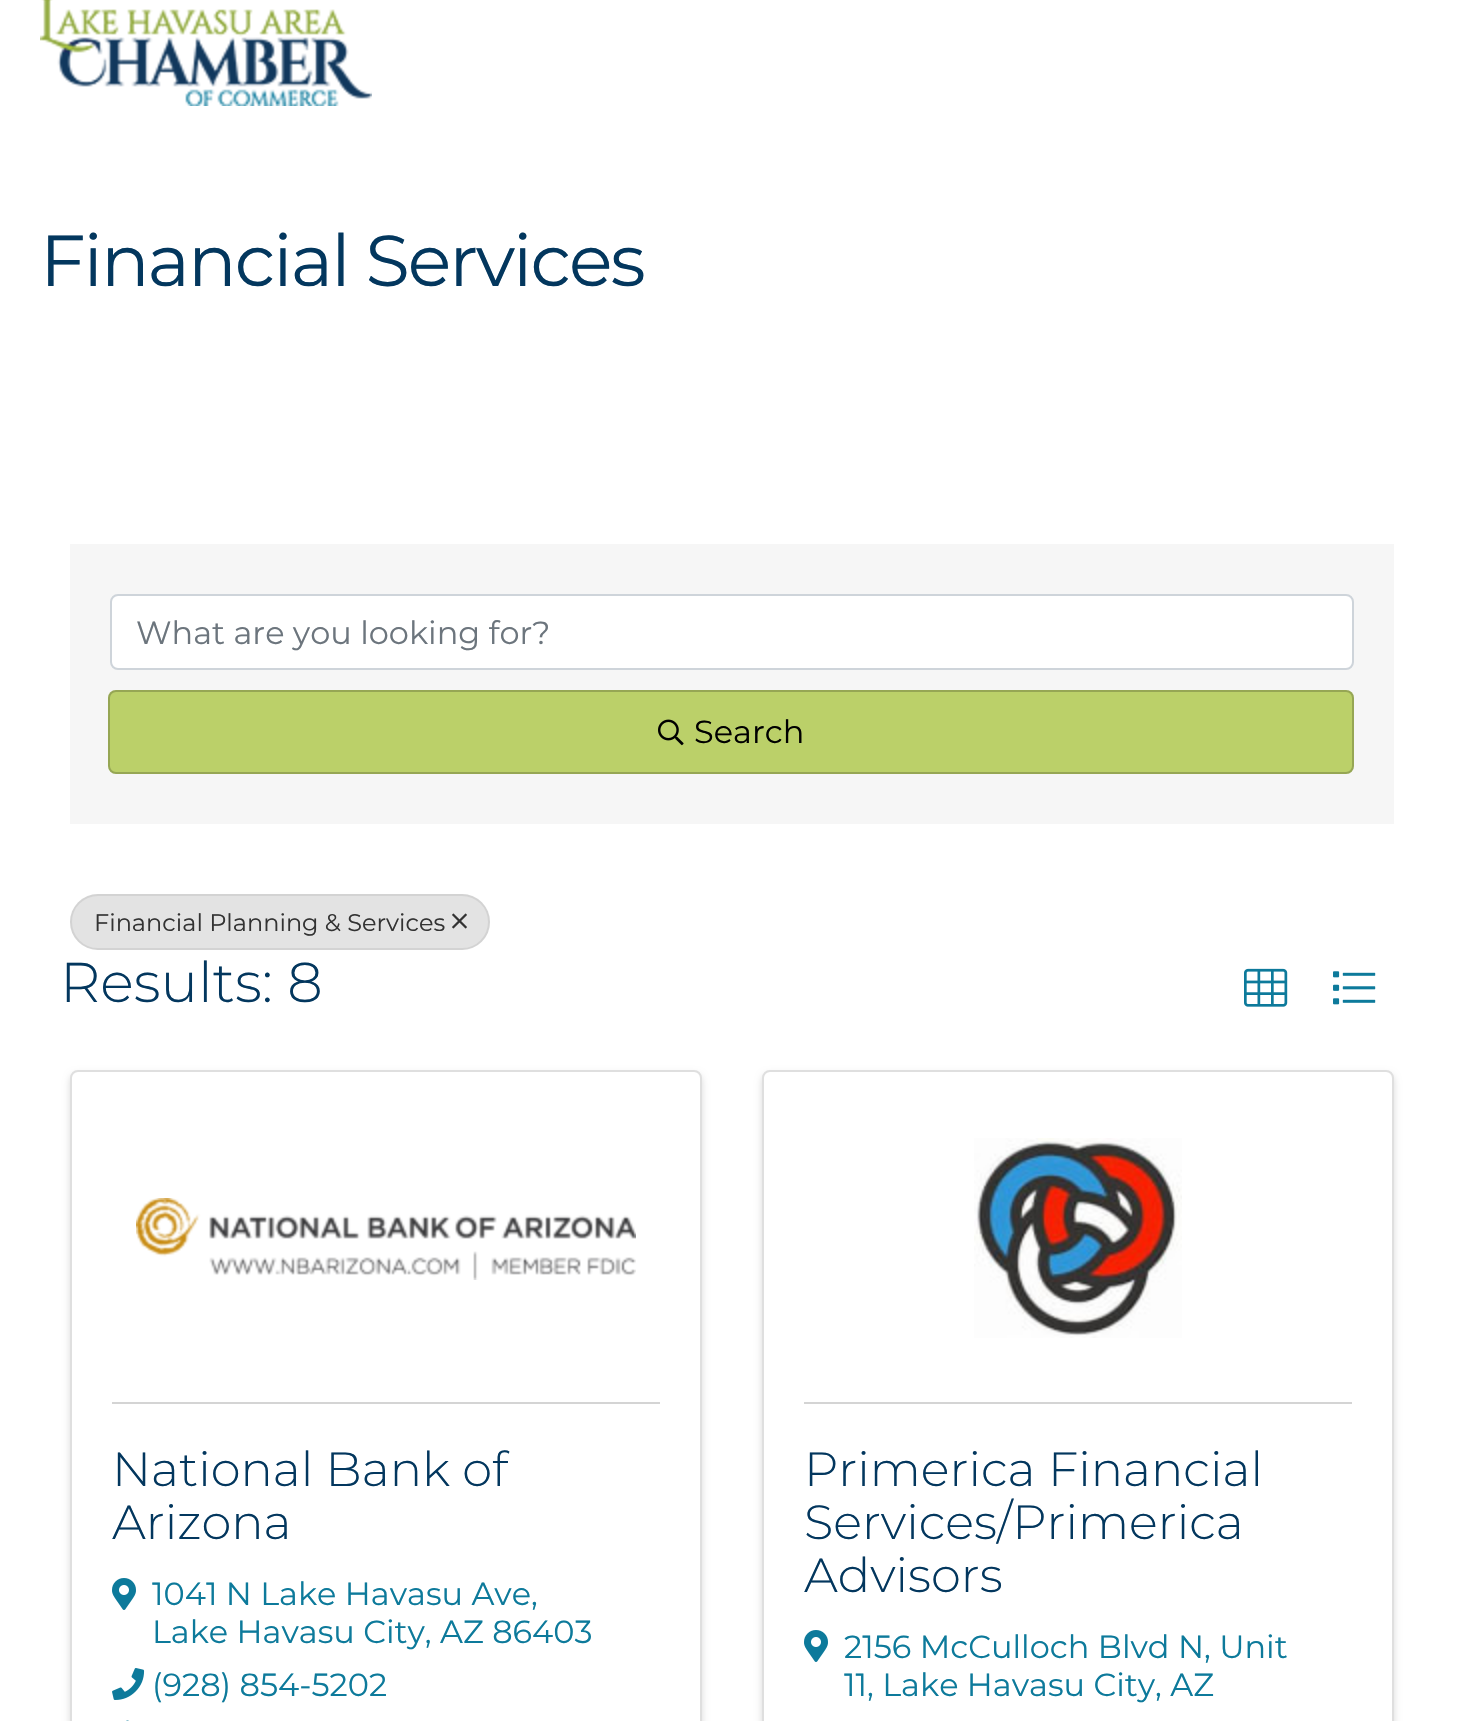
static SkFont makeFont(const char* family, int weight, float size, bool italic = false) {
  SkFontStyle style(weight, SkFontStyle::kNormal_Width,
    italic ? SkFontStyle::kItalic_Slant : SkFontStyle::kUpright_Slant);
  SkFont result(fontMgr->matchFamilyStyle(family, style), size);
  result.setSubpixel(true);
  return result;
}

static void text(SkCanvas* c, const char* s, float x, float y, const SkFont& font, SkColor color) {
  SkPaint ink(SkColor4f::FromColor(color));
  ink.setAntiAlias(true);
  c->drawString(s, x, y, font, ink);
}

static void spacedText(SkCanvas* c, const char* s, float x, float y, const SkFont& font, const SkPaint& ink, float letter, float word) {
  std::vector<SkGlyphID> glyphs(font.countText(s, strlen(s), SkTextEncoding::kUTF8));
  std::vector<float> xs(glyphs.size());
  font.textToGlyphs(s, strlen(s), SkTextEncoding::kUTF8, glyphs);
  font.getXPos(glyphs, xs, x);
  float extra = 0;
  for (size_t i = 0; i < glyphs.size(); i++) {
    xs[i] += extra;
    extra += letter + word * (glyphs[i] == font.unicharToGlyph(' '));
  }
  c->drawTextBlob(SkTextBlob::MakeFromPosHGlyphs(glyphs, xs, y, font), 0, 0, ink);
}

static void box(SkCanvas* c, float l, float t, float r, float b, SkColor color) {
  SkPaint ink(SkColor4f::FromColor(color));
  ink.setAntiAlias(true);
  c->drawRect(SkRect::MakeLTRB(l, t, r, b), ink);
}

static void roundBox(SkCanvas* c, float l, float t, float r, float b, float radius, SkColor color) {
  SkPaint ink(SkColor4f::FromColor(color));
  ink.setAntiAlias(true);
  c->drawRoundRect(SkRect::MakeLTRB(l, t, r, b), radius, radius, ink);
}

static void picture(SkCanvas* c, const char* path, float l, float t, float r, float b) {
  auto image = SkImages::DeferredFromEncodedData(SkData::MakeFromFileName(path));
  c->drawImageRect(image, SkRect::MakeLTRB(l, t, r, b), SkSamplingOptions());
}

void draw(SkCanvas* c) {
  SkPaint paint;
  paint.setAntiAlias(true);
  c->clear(0xffffffff);
  picture(c, "img_01.png", 40, 0, 372, 106);
  SkFont face1 = makeFont("Montserrat", 400, 72);
  paint.setColor(0xff03375e);
  spacedText(c, "Financial Services", 40, 286, face1, paint, -2, 0);
  box(c, 70, 544, 1394, 824, 0xfff6f6f6);
  paint.setColor(0xffffffff);
  c->drawRoundRect(SkRect::MakeLTRB(111, 595, 1353, 669), 7, 7, paint);
  paint.setStyle(SkPaint::kStroke_Style);
  paint.setStrokeWidth(2);
  paint.setColor(0xffced4da);
  c->drawRoundRect(SkRect::MakeLTRB(111, 595, 1353, 669), 7, 7, paint);
  SkFont face2 = makeFont("Montserrat", 400, 32);
  text(c, "What are you looking for?", 136, 644, face2, 0xff6c757d);
  roundBox(c, 108, 690, 1354, 774, 8, 0xffbbd069);
  paint.setColor(0x33000000);
  c->drawRoundRect(SkRect::MakeLTRB(109, 691, 1353, 773), 7, 7, paint);
  picture(c, "img_02.png", 658, 719, 684, 746);
  text(c, "Search", 694, 743, face2, 0xff000000);
  roundBox(c, 70, 894, 490, 950, 28, 0xffe3e3e3);
  paint.setColor(0x12000000);
  c->drawRoundRect(SkRect::MakeLTRB(71, 895, 489, 949), 27, 27, paint);
  SkFont face3 = makeFont("Montserrat", 400, 24);
  text(c, "Financial Planning & Services", 94, 931, face3, 0xff333333);
  picture(c, "img_03.png", 452, 913, 467, 929);
  SkFont face4 = makeFont("Montserrat", 300, 56);
  text(c, "Results: 8", 60, 1002, face4, 0xff03375e);
  picture(c, "img_04.png", 1244, 968, 1288, 1007);
  picture(c, "img_05.png", 1333, 971, 1376, 1005);
  paint.setStyle(SkPaint::kFill_Style);
  paint.setColor(0x26000000);
  paint.setMaskFilter(SkMaskFilter::MakeBlur(kNormal_SkBlurStyle, 3.5f));
  c->drawRoundRect(SkRect::MakeLTRB(70, 1074, 702, 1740), 8, 8, paint);
  paint.setMaskFilter(nullptr);
  paint.setColor(0xffffffff);
  c->drawRoundRect(SkRect::MakeLTRB(71, 1071, 701, 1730), 7, 7, paint);
  paint.setStyle(SkPaint::kStroke_Style);
  paint.setColor(0xffdfdfdf);
  c->drawRoundRect(SkRect::MakeLTRB(71, 1071, 701, 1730), 7, 7, paint);
  picture(c, "img_06.png", 136, 1198, 636, 1280);
  box(c, 112, 1402, 660, 1404, 0xffd4d4d4);
  SkFont face5 = makeFont("Montserrat", 300, 48);
  text(c, "National Bank of", 112, 1486, face5, 0xff03375e);
  text(c, "Arizona", 112, 1539, face5, 0xff03375e);
  picture(c, "img_07.png", 112, 1578, 136, 1610);
  text(c, "1041 N Lake Havasu Ave,", 152, 1605, face2, 0xff0d7a9b);
  text(c, "Lake Havasu City, AZ 86403", 152, 1643, face2, 0xff0d7a9b);
  picture(c, "img_08.png", 112, 1668, 145, 1700);
  text(c, "(928) 854-5202", 152, 1696, face2, 0xff0d7a9b);
  picture(c, "img_09.png", 126, 1720, 129, 1721);
  paint.setStyle(SkPaint::kFill_Style);
  paint.setColor(0x26000000);
  paint.setMaskFilter(SkMaskFilter::MakeBlur(kNormal_SkBlurStyle, 3.5f));
  c->drawRoundRect(SkRect::MakeLTRB(762, 1074, 1394, 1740), 8, 8, paint);
  paint.setMaskFilter(nullptr);
  paint.setColor(0xffffffff);
  c->drawRoundRect(SkRect::MakeLTRB(763, 1071, 1393, 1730), 7, 7, paint);
  paint.setStyle(SkPaint::kStroke_Style);
  paint.setColor(0xffdfdfdf);
  c->drawRoundRect(SkRect::MakeLTRB(763, 1071, 1393, 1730), 7, 7, paint);
  picture(c, "img_10.png", 974, 1138, 1182, 1338);
  box(c, 804, 1402, 1352, 1404, 0xffd4d4d4);
  text(c, "Primerica Financial", 804, 1486, face5, 0xff03375e);
  text(c, "Services/Primerica", 804, 1539, face5, 0xff03375e);
  text(c, "Advisors", 804, 1592, face5, 0xff03375e);
  picture(c, "img_07.png", 804, 1630, 828, 1662);
  text(c, "2156 McCulloch Blvd N, Unit", 844, 1658, face2, 0xff0d7a9b);
  text(c, "11, Lake Havasu City, AZ", 844, 1696, face2, 0xff0d7a9b);
}
